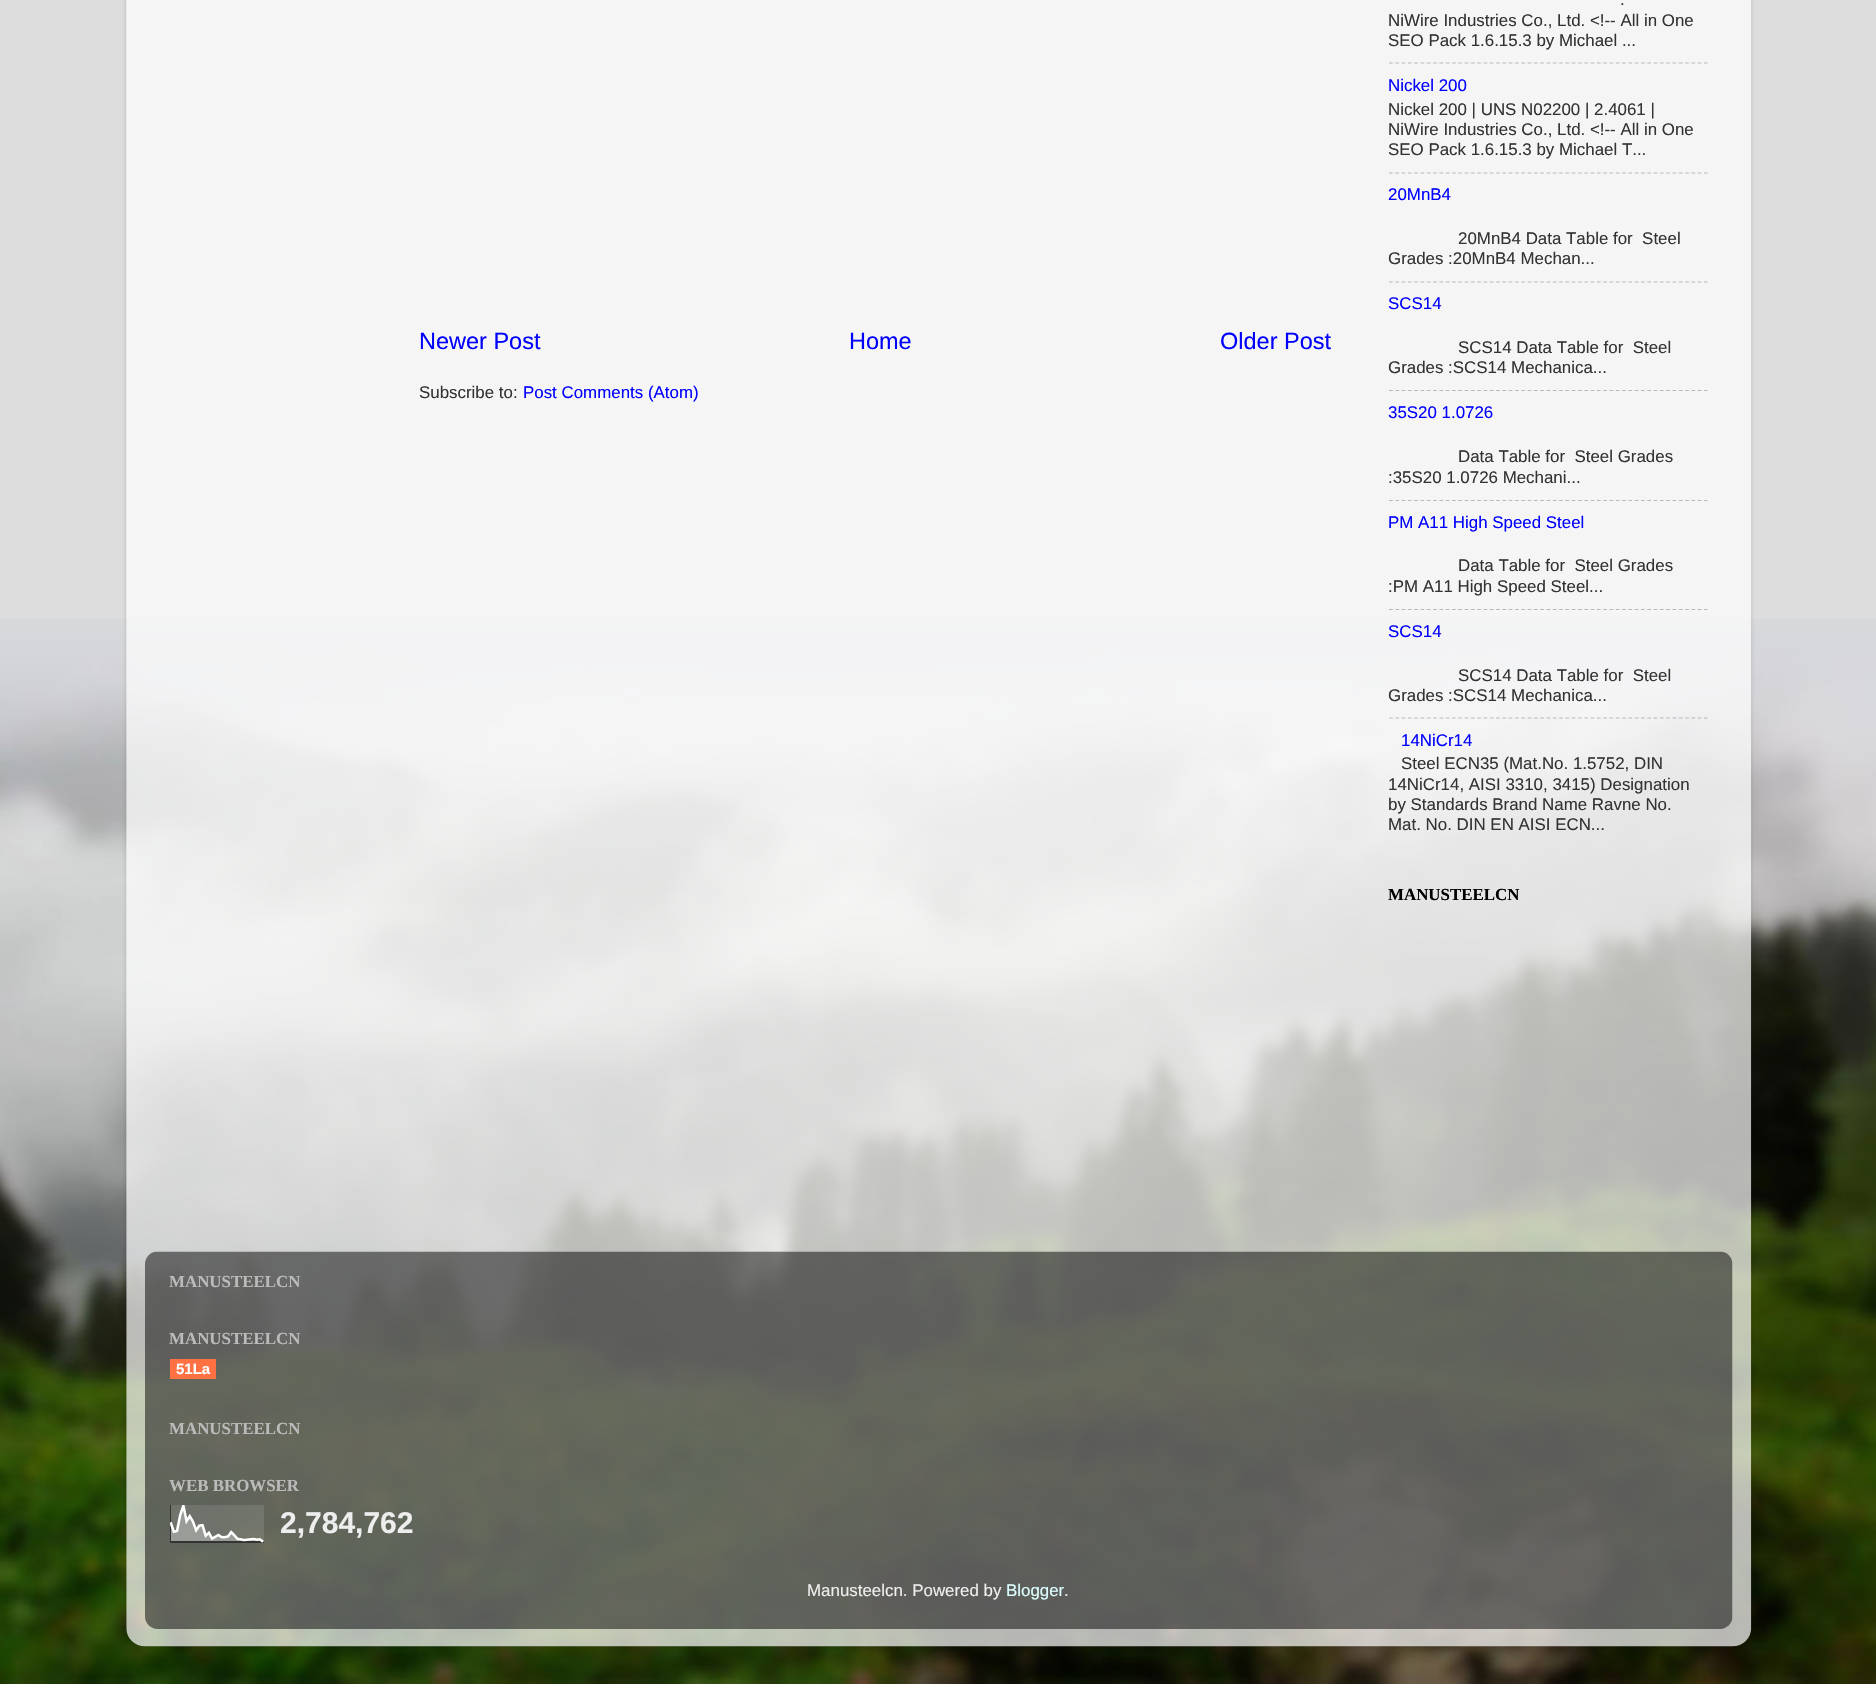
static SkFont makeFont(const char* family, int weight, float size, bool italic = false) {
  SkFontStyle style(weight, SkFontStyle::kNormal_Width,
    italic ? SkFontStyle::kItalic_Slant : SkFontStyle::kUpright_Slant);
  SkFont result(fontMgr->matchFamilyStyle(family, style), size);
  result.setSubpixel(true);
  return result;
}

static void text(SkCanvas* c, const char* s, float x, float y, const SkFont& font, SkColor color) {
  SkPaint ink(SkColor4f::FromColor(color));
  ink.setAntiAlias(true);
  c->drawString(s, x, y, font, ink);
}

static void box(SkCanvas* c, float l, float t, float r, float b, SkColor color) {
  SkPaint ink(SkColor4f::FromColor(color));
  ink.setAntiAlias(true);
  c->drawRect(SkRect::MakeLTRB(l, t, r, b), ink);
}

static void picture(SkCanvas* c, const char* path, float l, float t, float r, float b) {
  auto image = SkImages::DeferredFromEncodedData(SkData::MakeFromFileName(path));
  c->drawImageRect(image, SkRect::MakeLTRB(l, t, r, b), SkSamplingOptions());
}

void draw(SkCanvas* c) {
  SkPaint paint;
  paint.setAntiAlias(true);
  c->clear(0xffdddddd);
  picture(c, "img_01.png", 0, 619, 1876, 1684);
  c->save();
  c->clipPath(SkPathBuilder(SkPathFillType::kEvenOdd).moveTo(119, 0).lineTo(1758, 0).lineTo(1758, 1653).lineTo(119, 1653).close().moveTo(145, -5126).lineTo(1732, -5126).cubicTo(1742.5f, -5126, 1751, -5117.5f, 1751, -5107).lineTo(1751, 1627).cubicTo(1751, 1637.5f, 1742.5f, 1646, 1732, 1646).lineTo(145, 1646).cubicTo(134.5f, 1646, 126, 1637.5f, 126, 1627).lineTo(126, -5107).cubicTo(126, -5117.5f, 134.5f, -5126, 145, -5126).close().detach(), true);
  paint.setColor(0x26000000);
  paint.setMaskFilter(SkMaskFilter::MakeBlur(kNormal_SkBlurStyle, 2));
  c->drawRoundRect(SkRect::MakeLTRB(126, -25, 1751, 1646), 19, 19, paint);
  paint.setMaskFilter(nullptr);
  c->restore();
  picture(c, "img_02.png", 126, 0, 1752, 1647);
  SkFont face1 = makeFont("Liberation Sans", 400, 23.5f);
  text(c, "Newer Post", 419, 349, face1, 0xff0000ff);
  text(c, "Home", 849, 349, face1, 0xff0000ff);
  text(c, "Older Post", 1220, 349, face1, 0xff0000ff);
  SkFont face2 = makeFont("Liberation Sans", 400, 16.9f);
  text(c, "Subscribe to:", 419, 398, face2, 0xff333333);
  text(c, "Post Comments (Atom)", 523, 398, face2, 0xff0000ff);
  text(c, ".", 1620, 5, face2, 0xff333333);
  text(c, "NiWire Industries Co., Ltd. <!-- All in One", 1388, 26, face2, 0xff333333);
  text(c, "SEO Pack 1.6.15.3 by Michael ...", 1388, 46, face2, 0xff333333);
  paint.setStyle(SkPaint::kStroke_Style);
  paint.setStrokeWidth(1.2f);
  paint.setColor(0xffbababa);
  paint.setPathEffect(SkDashPathEffect::Make({{3.75f, 2.55f}}, 0));
  c->drawPath(SkPathBuilder().moveTo(1389, 63).lineTo(1707.5f, 63).detach(), paint);
  paint.setPathEffect(nullptr);
  text(c, "Nickel 200", 1388, 91, face2, 0xff0000ff);
  text(c, "Nickel 200 | UNS N02200 | 2.4061 |", 1388, 115, face2, 0xff333333);
  text(c, "NiWire Industries Co., Ltd. <!-- All in One", 1388, 135, face2, 0xff333333);
  text(c, "SEO Pack 1.6.15.3 by Michael T...", 1388, 155, face2, 0xff333333);
  paint.setPathEffect(SkDashPathEffect::Make({{3.75f, 2.55f}}, 0));
  c->drawPath(SkPathBuilder().moveTo(1389, 173).lineTo(1707.5f, 173).detach(), paint);
  paint.setPathEffect(nullptr);
  text(c, "20MnB4", 1388, 200, face2, 0xff0000ff);
  text(c, "20MnB4 Data Table for  Steel", 1458, 244, face2, 0xff333333);
  text(c, "Grades :20MnB4 Mechan...", 1388, 264, face2, 0xff333333);
  paint.setPathEffect(SkDashPathEffect::Make({{3.75f, 2.55f}}, 0));
  c->drawPath(SkPathBuilder().moveTo(1389, 282).lineTo(1707.5f, 282).detach(), paint);
  paint.setPathEffect(nullptr);
  text(c, "SCS14", 1388, 309, face2, 0xff0000ff);
  text(c, "SCS14 Data Table for  Steel", 1458, 353, face2, 0xff333333);
  text(c, "Grades :SCS14 Mechanica...", 1388, 373, face2, 0xff333333);
  paint.setPathEffect(SkDashPathEffect::Make({{3.75f, 2.55f}}, 0));
  c->drawPath(SkPathBuilder().moveTo(1389, 390.5f).lineTo(1707.5f, 390.5f).detach(), paint);
  paint.setPathEffect(nullptr);
  text(c, "35S20 1.0726", 1388, 418, face2, 0xff0000ff);
  text(c, "Data Table for  Steel Grades", 1458, 462, face2, 0xff333333);
  text(c, ":35S20 1.0726 Mechani...", 1388, 483, face2, 0xff333333);
  paint.setPathEffect(SkDashPathEffect::Make({{3.75f, 2.55f}}, 0));
  c->drawPath(SkPathBuilder().moveTo(1389, 500.5f).lineTo(1707.5f, 500.5f).detach(), paint);
  paint.setPathEffect(nullptr);
  text(c, "PM A11 High Speed Steel", 1388, 528, face2, 0xff0000ff);
  text(c, "Data Table for  Steel Grades", 1458, 571, face2, 0xff333333);
  text(c, ":PM A11 High Speed Steel...", 1388, 592, face2, 0xff333333);
  paint.setPathEffect(SkDashPathEffect::Make({{3.75f, 2.55f}}, 0));
  c->drawPath(SkPathBuilder().moveTo(1389, 609.5f).lineTo(1707.5f, 609.5f).detach(), paint);
  paint.setPathEffect(nullptr);
  text(c, "SCS14", 1388, 637, face2, 0xff0000ff);
  text(c, "SCS14 Data Table for  Steel", 1458, 681, face2, 0xff333333);
  text(c, "Grades :SCS14 Mechanica...", 1388, 701, face2, 0xff333333);
  paint.setColor(0x80808080);
  paint.setPathEffect(SkDashPathEffect::Make({{3.75f, 2.55f}}, 0));
  c->drawPath(SkPathBuilder().moveTo(1389, 718).lineTo(1707.5f, 718).detach(), paint);
  paint.setPathEffect(nullptr);
  text(c, "14NiCr14", 1401, 746, face2, 0xff0000ff);
  text(c, "Steel ECN35 (Mat.No. 1.5752, DIN", 1401, 769, face2, 0xff333333);
  text(c, "14NiCr14, AISI 3310, 3415) Designation", 1388, 790, face2, 0xff333333);
  text(c, "by Standards Brand Name Ravne No.", 1388, 810, face2, 0xff333333);
  text(c, "Mat. No. DIN EN AISI ECN...", 1388, 830, face2, 0xff333333);
  SkFont face3 = makeFont("Liberation Serif", 700, 16.9f);
  text(c, "MANUSTEELCN", 1388, 900, face3, 0xff000000);
  picture(c, "img_03.png", 145, 1251, 1733, 1629);
  text(c, "MANUSTEELCN", 169, 1287, face3, 0xffbbbbbb);
  text(c, "MANUSTEELCN", 169, 1344, face3, 0xffbbbbbb);
  box(c, 170, 1359, 216, 1379, 0xffff7043);
  SkFont face4 = makeFont("Liberation Sans", 700, 15);
  text(c, "51La", 176, 1374, face4, 0xffffffff);
  text(c, "MANUSTEELCN", 169, 1434, face3, 0xffbbbbbb);
  text(c, "WEB BROWSER", 169, 1491, face3, 0xffbbbbbb);
  picture(c, "img_04.png", 170, 1505, 264, 1543);
  SkFont face5 = makeFont("Liberation Sans", 700, 30);
  text(c, "2,784,762", 280, 1533, face5, 0xffeeeeee);
  text(c, "Manusteelcn. Powered by", 807, 1596, face2, 0xffeeeeee);
  text(c, "Blogger", 1006, 1596, face2, 0xffddffff);
  text(c, ".", 1064, 1596, face2, 0xffeeeeee);
}
